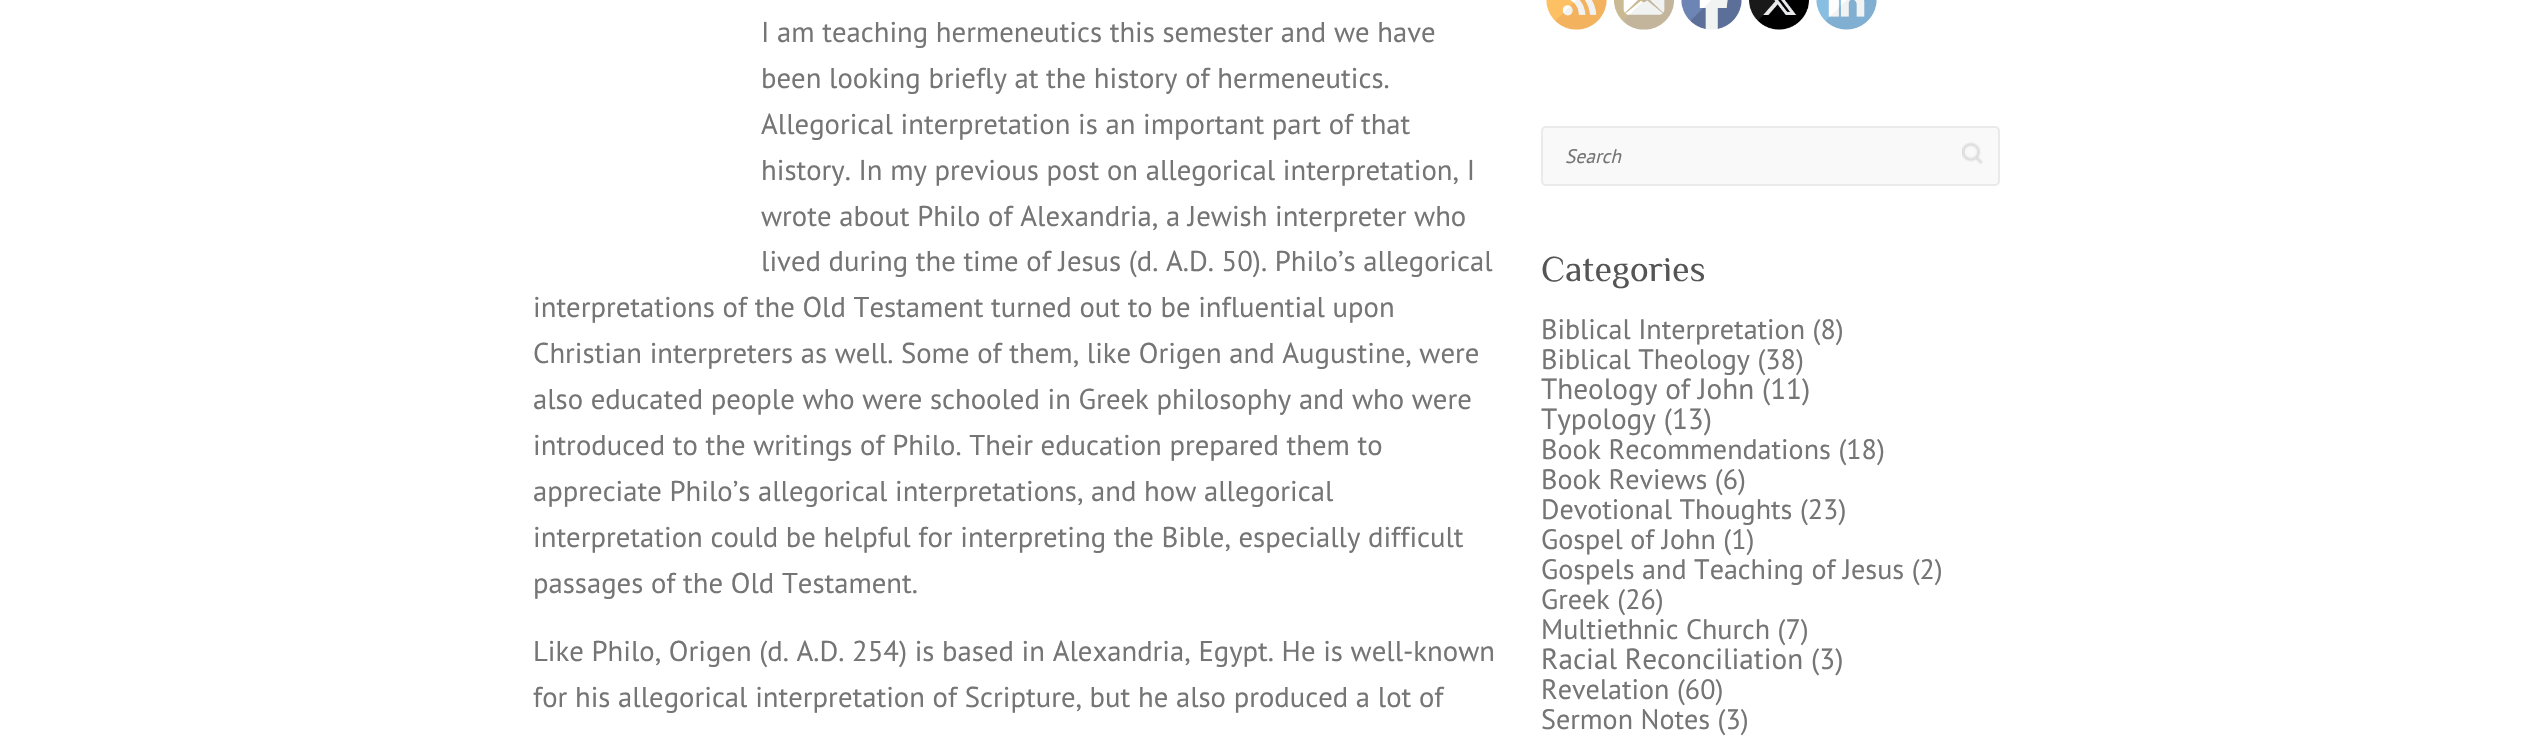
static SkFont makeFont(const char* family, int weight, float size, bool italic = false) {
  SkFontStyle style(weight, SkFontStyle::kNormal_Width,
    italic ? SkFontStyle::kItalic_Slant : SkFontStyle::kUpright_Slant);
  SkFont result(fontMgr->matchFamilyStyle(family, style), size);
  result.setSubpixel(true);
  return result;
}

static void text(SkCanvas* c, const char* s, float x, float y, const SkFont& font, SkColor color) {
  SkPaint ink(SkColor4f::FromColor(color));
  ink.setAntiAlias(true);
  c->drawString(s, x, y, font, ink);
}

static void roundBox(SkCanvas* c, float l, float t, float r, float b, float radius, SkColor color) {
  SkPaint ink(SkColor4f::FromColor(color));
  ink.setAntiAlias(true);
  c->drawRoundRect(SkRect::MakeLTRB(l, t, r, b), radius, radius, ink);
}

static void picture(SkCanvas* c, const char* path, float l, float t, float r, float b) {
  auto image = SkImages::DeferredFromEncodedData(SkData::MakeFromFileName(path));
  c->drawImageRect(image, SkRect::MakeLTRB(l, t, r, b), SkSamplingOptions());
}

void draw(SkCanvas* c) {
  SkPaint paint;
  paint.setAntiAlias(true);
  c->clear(0xffffffff);
  SkFont face1 = makeFont("PT Sans", 400, 28.7f);
  text(c, "I am teaching hermeneutics this semester and we have", 761, 42, face1, 0xff757575);
  text(c, "been looking briefly at the history of hermeneutics.", 761, 88, face1, 0xff757575);
  text(c, "Allegorical interpretation is an important part of that", 761, 134, face1, 0xff757575);
  text(c, "history. In my previous post on allegorical interpretation, I", 761, 180, face1, 0xff757575);
  text(c, "wrote about Philo of Alexandria, a Jewish interpreter who", 761, 226, face1, 0xff757575);
  text(c, "lived during the time of Jesus (d. A.D. 50). Philo’s allegorical", 761, 271, face1, 0xff757575);
  text(c, "interpretations of the Old Testament turned out to be influential upon", 533, 317, face1, 0xff757575);
  text(c, "Christian interpreters as well. Some of them, like Origen and Augustine, were", 533, 363, face1, 0xff757575);
  text(c, "also educated people who were schooled in Greek philosophy and who were", 533, 409, face1, 0xff757575);
  text(c, "introduced to the writings of Philo. Their education prepared them to", 533, 455, face1, 0xff757575);
  text(c, "appreciate Philo’s allegorical interpretations, and how allegorical", 533, 501, face1, 0xff757575);
  text(c, "interpretation could be helpful for interpreting the Bible, especially difficult", 533, 547, face1, 0xff757575);
  text(c, "passages of the Old Testament.", 533, 593, face1, 0xff757575);
  text(c, "Like Philo, Origen (d. A.D. 254) is based in Alexandria, Egypt. He is well-known", 533, 661, face1, 0xff757575);
  text(c, "for his allegorical interpretation of Scripture, but he also produced a lot of", 533, 707, face1, 0xff757575);
  picture(c, "img_01.png", 1546, 0, 1607, 30);
  picture(c, "img_02.png", 1614, 0, 1674, 30);
  picture(c, "img_03.png", 1681, 0, 1742, 30);
  picture(c, "img_04.png", 1749, 0, 1809, 30);
  picture(c, "img_05.png", 1816, 0, 1877, 30);
  roundBox(c, 1541, 126, 2000, 186, 5, 0xfff9f9f9);
  picture(c, "img_06.png", 1962, 142, 1983, 165);
  paint.setStyle(SkPaint::kStroke_Style);
  paint.setStrokeWidth(2);
  paint.setColor(0xffeaeaea);
  c->drawRoundRect(SkRect::MakeLTRB(1542, 127, 1999, 185), 4, 4, paint);
  SkFont face2 = makeFont("PT Sans", 400, 19.5f, true);
  text(c, "Search", 1565, 163, face2, 0xff757575);
  SkFont face3 = makeFont("Philosopher", 400, 36);
  text(c, "Categories", 1541, 281, face3, 0xff555555);
  SkFont face4 = makeFont("PT Sans", 400, 28.1f);
  text(c, "Biblical Interpretation (8)", 1541, 339, face4, 0xff757575);
  text(c, "Biblical Theology (38)", 1541, 369, face4, 0xff757575);
  SkFont face5 = makeFont("PT Sans", 400, 29.25f);
  text(c, "Theology of John (11)", 1541, 399, face5, 0xff757575);
  text(c, "Typology (13)", 1541, 429, face5, 0xff757575);
  text(c, "Book Recommendations (18)", 1541, 459, face4, 0xff757575);
  text(c, "Book Reviews (6)", 1541, 489, face4, 0xff757575);
  text(c, "Devotional Thoughts (23)", 1541, 519, face4, 0xff757575);
  text(c, "Gospel of John (1)", 1541, 549, face4, 0xff757575);
  text(c, "Gospels and Teaching of Jesus (2)", 1541, 579, face4, 0xff757575);
  text(c, "Greek (26)", 1541, 609, face4, 0xff757575);
  text(c, "Multiethnic Church (7)", 1541, 639, face4, 0xff757575);
  text(c, "Racial Reconciliation (3)", 1541, 669, face5, 0xff757575);
  text(c, "Revelation (60)", 1541, 699, face4, 0xff757575);
  text(c, "Sermon Notes (3)", 1541, 729, face4, 0xff757575);
}
